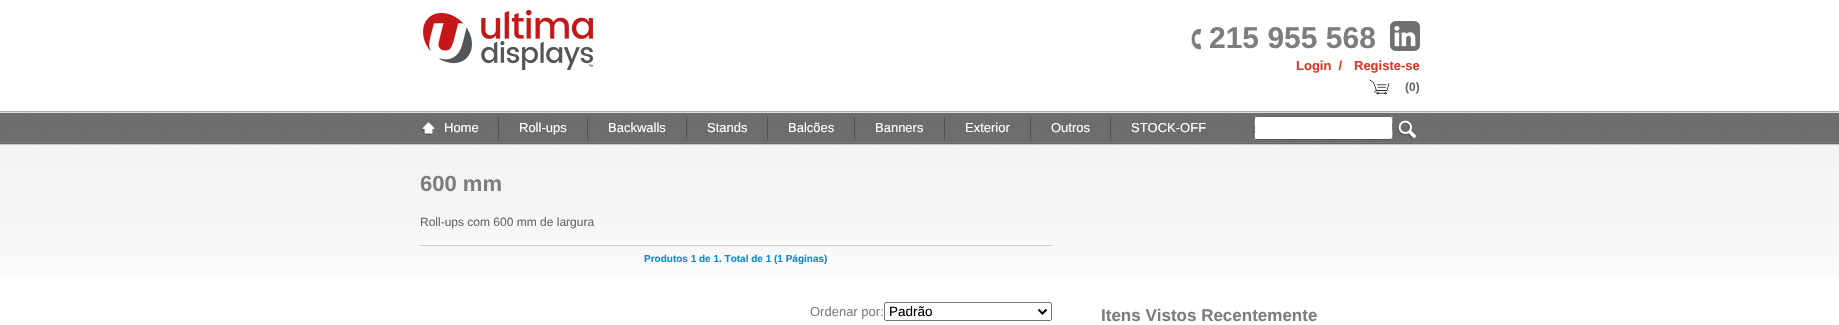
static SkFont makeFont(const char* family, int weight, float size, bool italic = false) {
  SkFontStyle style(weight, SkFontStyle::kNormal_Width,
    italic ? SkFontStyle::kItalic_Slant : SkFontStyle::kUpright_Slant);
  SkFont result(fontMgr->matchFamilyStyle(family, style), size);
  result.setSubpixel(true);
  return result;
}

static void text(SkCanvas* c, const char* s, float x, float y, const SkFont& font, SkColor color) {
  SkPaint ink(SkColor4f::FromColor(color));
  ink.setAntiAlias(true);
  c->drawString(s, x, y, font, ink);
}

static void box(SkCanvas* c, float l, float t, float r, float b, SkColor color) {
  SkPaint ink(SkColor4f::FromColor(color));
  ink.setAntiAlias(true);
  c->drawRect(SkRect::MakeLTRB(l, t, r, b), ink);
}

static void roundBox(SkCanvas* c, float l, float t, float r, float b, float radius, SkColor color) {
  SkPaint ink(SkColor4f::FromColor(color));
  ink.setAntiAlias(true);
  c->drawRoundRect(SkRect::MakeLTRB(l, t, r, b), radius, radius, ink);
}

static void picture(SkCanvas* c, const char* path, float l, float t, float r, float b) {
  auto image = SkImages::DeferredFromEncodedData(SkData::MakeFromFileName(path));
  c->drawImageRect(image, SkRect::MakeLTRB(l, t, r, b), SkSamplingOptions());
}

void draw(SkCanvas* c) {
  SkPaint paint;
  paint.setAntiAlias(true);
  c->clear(0xffffffff);
  picture(c, "img_01.png", 423, 10, 593, 70);
  picture(c, "img_02.png", 1191, 29, 1201, 51);
  SkFont face1 = makeFont("Liberation Sans", 700, 30);
  text(c, "215 955 568", 1209, 48, face1, 0xff7d7d7d);
  picture(c, "img_03.png", 1390, 21, 1420, 51);
  SkFont face2 = makeFont("Liberation Sans", 700, 13);
  text(c, "Login  /", 1296, 70, face2, 0xffdc3824);
  text(c, "Registe-se", 1354, 70, face2, 0xffdc3824);
  picture(c, "img_04.png", 1369, 79, 1390, 95);
  SkFont face3 = makeFont("Liberation Sans", 700, 12);
  text(c, "(0)", 1405, 91, face3, 0xff666666);
  picture(c, "img_07.png", 0, 111, 1839, 278);
  picture(c, "img_05.png", 421, 122, 435, 135);
  box(c, 498, 117, 499, 140, 0xff525252);
  SkFont face4 = makeFont("Liberation Sans", 400, 13);
  text(c, "Home", 444, 132, face4, 0xffffffff);
  box(c, 587, 117, 588, 140, 0xff525252);
  text(c, "Roll-ups", 519, 132, face4, 0xffffffff);
  box(c, 686, 117, 687, 140, 0xff525252);
  text(c, "Backwalls", 608, 132, face4, 0xffffffff);
  box(c, 767, 117, 768, 140, 0xff525252);
  text(c, "Stands", 707, 132, face4, 0xffffffff);
  box(c, 854, 117, 855, 140, 0xff525252);
  text(c, "Balcões", 788, 132, face4, 0xffffffff);
  box(c, 944, 117, 945, 140, 0xff525252);
  text(c, "Banners", 875, 132, face4, 0xffffffff);
  box(c, 1030, 117, 1031, 140, 0xff525252);
  text(c, "Exterior", 965, 132, face4, 0xffffffff);
  box(c, 1110, 117, 1111, 140, 0xff525252);
  text(c, "Outros", 1051, 132, face4, 0xffffffff);
  text(c, "STOCK-OFF", 1131, 132, face4, 0xffffffff);
  roundBox(c, 1254, 116, 1393, 140, 3, 0xffffffff);
  paint.setStyle(SkPaint::kStroke_Style);
  paint.setStrokeWidth(1);
  paint.setColor(0xff6b6b6b);
  c->drawPath(SkPathBuilder().moveTo(1255, 117).lineTo(1257, 116.5f).lineTo(1390, 116.5f).cubicTo(1394, 116.5f, 1392.5f, 123, 1392.5f, 125).cubicTo(1392.5f, 127.5f, 1393.5f, 137, 1392, 139).detach(), paint);
  paint.setColor(0xff525252);
  c->drawPath(SkPathBuilder().moveTo(1392, 139).lineTo(1390, 139.5f).lineTo(1257, 139.5f).cubicTo(1253, 139.5f, 1254.5f, 133, 1254.5f, 131).cubicTo(1254.5f, 128.5f, 1253.5f, 119, 1255, 117).detach(), paint);
  picture(c, "img_06.png", 1397, 120, 1417, 139);
  SkFont face5 = makeFont("Liberation Sans", 700, 22);
  text(c, "600 mm", 420, 191, face5, 0xff7d7d7d);
  box(c, 420, 245, 1052, 246, 0xffcccccc);
  SkFont face6 = makeFont("Liberation Sans", 400, 12);
  text(c, "Roll-ups com 600 mm de largura", 420, 226, face6, 0xff666666);
  SkFont face7 = makeFont("Liberation Sans", 700, 10);
  text(c, "Produtos 1 de 1. Total de 1 (1 Páginas)", 644, 262, face7, 0xff0e8ccc);
  text(c, "Ordenar por:", 810, 316, face4, 0xff7d7d7d);
  paint.setColor(0xff767676);
  c->drawRoundRect(SkRect::MakeLTRB(884.5f, 302.5f, 1051.5f, 320.5f), 1.5f, 1.5f, paint);
  paint.setStrokeWidth(2);
  paint.setColor(0xff000000);
  c->drawPath(SkPathBuilder().moveTo(1038.5f, 309.5f).lineTo(1042.5f, 313.5f).lineTo(1046.5f, 309.5f).detach(), paint);
  SkFont face8 = makeFont("Liberation Sans", 400, 13.5f);
  text(c, "Padrão", 889, 316, face8, 0xff000000);
  SkFont face9 = makeFont("Liberation Sans", 700, 17);
  text(c, "Itens Vistos Recentemente", 1101, 321, face9, 0xff7d7d7d);
}
